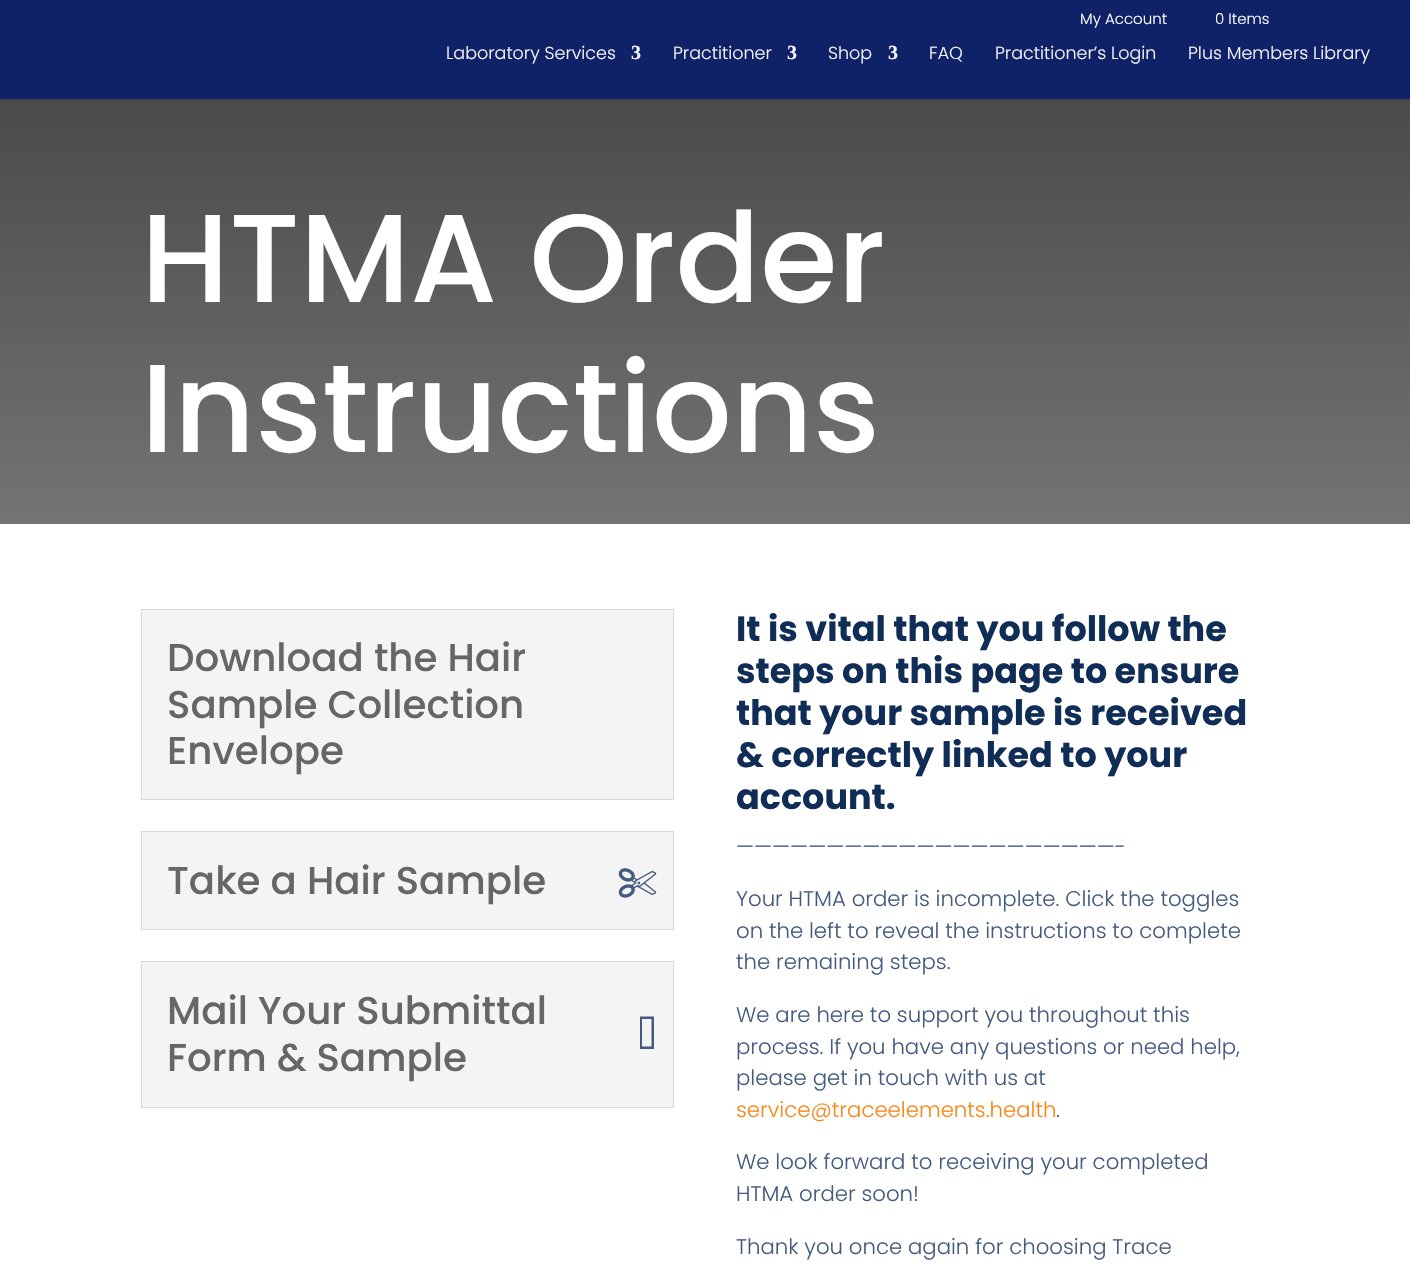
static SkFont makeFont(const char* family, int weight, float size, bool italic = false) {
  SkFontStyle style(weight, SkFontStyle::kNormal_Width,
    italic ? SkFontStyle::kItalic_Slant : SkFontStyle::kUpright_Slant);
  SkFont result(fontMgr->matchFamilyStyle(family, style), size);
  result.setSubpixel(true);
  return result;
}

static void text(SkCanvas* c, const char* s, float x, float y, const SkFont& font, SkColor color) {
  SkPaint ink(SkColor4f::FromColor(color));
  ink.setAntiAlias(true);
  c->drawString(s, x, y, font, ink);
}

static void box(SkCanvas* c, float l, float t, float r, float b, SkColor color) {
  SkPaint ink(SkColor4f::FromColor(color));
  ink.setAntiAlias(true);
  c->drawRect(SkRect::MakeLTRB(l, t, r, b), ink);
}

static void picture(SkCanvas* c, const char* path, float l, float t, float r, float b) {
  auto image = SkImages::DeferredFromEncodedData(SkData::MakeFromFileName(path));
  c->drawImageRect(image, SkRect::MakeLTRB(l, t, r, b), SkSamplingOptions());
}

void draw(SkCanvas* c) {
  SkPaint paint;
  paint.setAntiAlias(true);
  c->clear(0xffffffff);
  box(c, 0, 0, 1410, 99, 0xff0f2267);
  SkFont face1 = makeFont("Poppins", 300, 15);
  text(c, "My Account", 1080, 24, face1, 0xffffffff);
  text(c, "0 Items", 1215, 24, face1, 0xffffffff);
  box(c, 0, 99, 1410, 100, 0xff434343);
  SkFont face2 = makeFont("Poppins", 300, 17.5f);
  text(c, "Laboratory Services", 446, 59, face2, 0xfff4f4f4);
  SkFont face3 = makeFont("Liberation Serif", 700, 20);
  text(c, "3", 631, 59, face3, 0xfff4f4f4);
  text(c, "Practitioner", 673, 59, face2, 0xfff4f4f4);
  text(c, "3", 787, 59, face3, 0xfff4f4f4);
  text(c, "Shop", 828, 59, face2, 0xfff4f4f4);
  text(c, "3", 888, 59, face3, 0xfff4f4f4);
  text(c, "FAQ", 929, 59, face2, 0xfff4f4f4);
  text(c, "Practitioner’s Login", 995, 59, face2, 0xfff4f4f4);
  text(c, "Plus Members Library", 1188, 59, face2, 0xfff4f4f4);
  {
    const SkColor colors[] = {0xff4a4a4a, 0xff747474};
    const float stops[] = {0, 1};
    const SkPoint ends[] = {{705, 99}, {705, 524}};
    paint.setShader(SkGradientShader::MakeLinear(ends, colors, stops, 2, SkTileMode::kClamp));
    paint.setAlpha(255);
  }
  c->drawRect(SkRect::MakeLTRB(0, 100, 1410, 524), paint);
  SkFont face4 = makeFont("Poppins", 500, 125);
  text(c, "HTMA Order", 141, 302, face4, 0xffffffff);
  text(c, "Instructions", 141, 452, face4, 0xffffffff);
  paint.setShader(nullptr);
  paint.setColor(0xfff4f4f4);
  c->drawRect(SkRect::MakeLTRB(141.5f, 609.5f, 673.5f, 799.5f), paint);
  paint.setStyle(SkPaint::kStroke_Style);
  paint.setStrokeWidth(1);
  paint.setColor(0xffd9d9d9);
  c->drawRect(SkRect::MakeLTRB(141.5f, 609.5f, 673.5f, 799.5f), paint);
  SkFont face5 = makeFont("Poppins", 500, 38.75f);
  text(c, "Download the Hair", 167, 671, face5, 0xff666666);
  text(c, "Sample Collection", 167, 718, face5, 0xff666666);
  text(c, "Envelope", 167, 764, face5, 0xff666666);
  paint.setStyle(SkPaint::kFill_Style);
  paint.setColor(0xfff4f4f4);
  c->drawRect(SkRect::MakeLTRB(141.5f, 831.5f, 673.5f, 929.5f), paint);
  paint.setStyle(SkPaint::kStroke_Style);
  paint.setColor(0xffd9d9d9);
  c->drawRect(SkRect::MakeLTRB(141.5f, 831.5f, 673.5f, 929.5f), paint);
  text(c, "Take a Hair Sample", 167, 894, face5, 0xff666666);
  picture(c, "img_01.png", 618, 868, 657, 898);
  paint.setStyle(SkPaint::kFill_Style);
  paint.setColor(0xfff4f4f4);
  c->drawRect(SkRect::MakeLTRB(141.5f, 961.5f, 673.5f, 1107.5f), paint);
  paint.setStyle(SkPaint::kStroke_Style);
  paint.setColor(0xffd9d9d9);
  c->drawRect(SkRect::MakeLTRB(141.5f, 961.5f, 673.5f, 1107.5f), paint);
  text(c, "Mail Your Submittal", 167, 1024, face5, 0xff666666);
  paint.setStyle(SkPaint::kFill_Style);
  paint.setColor(0xff435b7e);
  c->drawPath(SkPathBuilder().moveTo(642, 1046.5f).lineTo(642, 1019).lineTo(651.5f, 1019).lineTo(651.5f, 1046.5f).close().moveTo(640, 1049).lineTo(654, 1049).lineTo(654, 1016.5f).lineTo(640, 1016.5f).close().detach(), paint);
  text(c, "Form & Sample", 167, 1071, face5, 0xff666666);
  SkFont face6 = makeFont("Poppins", 700, 35);
  text(c, "It is vital that you follow the", 736, 641, face6, 0xff102d57);
  text(c, "steps on this page to ensure", 736, 683, face6, 0xff102d57);
  text(c, "that your sample is received", 736, 725, face6, 0xff102d57);
  text(c, "& correctly linked to your", 736, 767, face6, 0xff102d57);
  text(c, "account.", 736, 809, face6, 0xff102d57);
  SkFont face7 = makeFont("Poppins", 300, 21.25f);
  text(c, "—————————————————————-", 736, 854, face7, 0xff435b7e);
  text(c, "Your HTMA order is incomplete. Click the toggles", 736, 906, face7, 0xff435b7e);
  text(c, "on the left to reveal the instructions to complete", 736, 938, face7, 0xff435b7e);
  text(c, "the remaining steps.", 736, 969, face7, 0xff435b7e);
  text(c, "We are here to support you throughout this", 736, 1022, face7, 0xff435b7e);
  text(c, "process. If you have any questions or need help,", 736, 1054, face7, 0xff435b7e);
  text(c, "please get in touch with us at", 736, 1085, face7, 0xff435b7e);
  text(c, "service@traceelements.health", 736, 1117, face7, 0xfffa8717);
  text(c, ".", 1056, 1117, face7, 0xff435b7e);
  text(c, "We look forward to receiving your completed", 736, 1169, face7, 0xff435b7e);
  text(c, "HTMA order soon!", 736, 1201, face7, 0xff435b7e);
  text(c, "Thank you once again for choosing Trace", 736, 1254, face7, 0xff435b7e);
}
